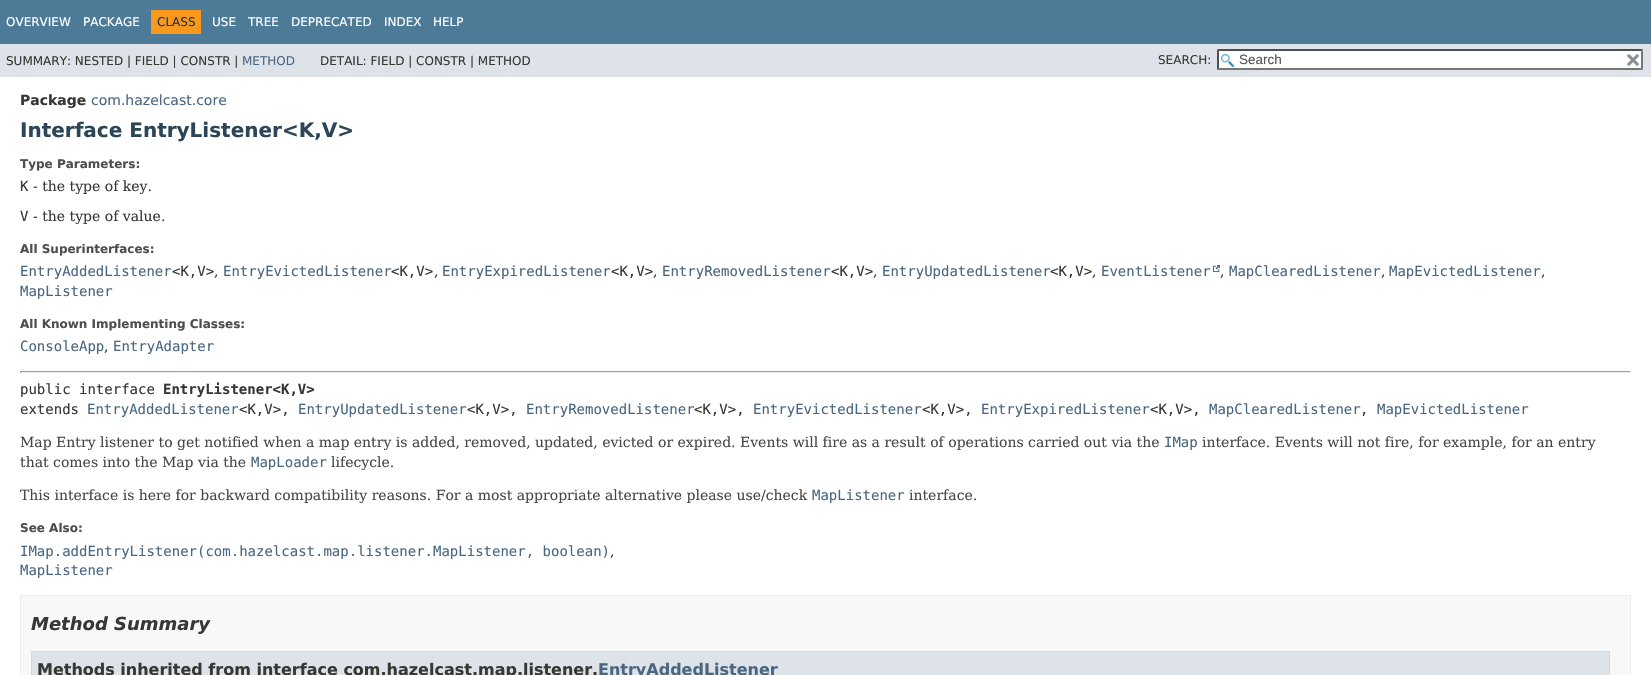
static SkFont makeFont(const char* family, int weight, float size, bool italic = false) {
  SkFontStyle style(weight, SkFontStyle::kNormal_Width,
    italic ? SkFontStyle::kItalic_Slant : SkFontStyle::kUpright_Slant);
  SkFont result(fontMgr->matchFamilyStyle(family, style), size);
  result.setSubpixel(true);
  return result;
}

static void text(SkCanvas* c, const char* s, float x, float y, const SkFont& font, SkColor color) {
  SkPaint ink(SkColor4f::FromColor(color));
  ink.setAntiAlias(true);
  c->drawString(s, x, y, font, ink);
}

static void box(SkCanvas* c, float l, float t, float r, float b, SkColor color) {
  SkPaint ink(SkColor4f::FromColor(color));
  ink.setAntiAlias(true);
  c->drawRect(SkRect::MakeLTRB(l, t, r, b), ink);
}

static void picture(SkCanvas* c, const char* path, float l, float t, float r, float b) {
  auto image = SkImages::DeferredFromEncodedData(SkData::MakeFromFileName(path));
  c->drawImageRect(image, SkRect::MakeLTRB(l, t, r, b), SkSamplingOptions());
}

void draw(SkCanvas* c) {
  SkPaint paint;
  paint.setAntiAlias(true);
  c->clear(0xffffffff);
  box(c, 0, 0, 1651, 44, 0xff4d7a97);
  SkFont face1 = makeFont("DejaVu Sans", 400, 12);
  text(c, "OVERVIEW", 6, 26, face1, 0xffffffff);
  text(c, "PACKAGE", 83, 26, face1, 0xffffffff);
  box(c, 151, 10, 201, 34, 0xfff8981d);
  text(c, "CLASS", 157, 26, face1, 0xff253441);
  text(c, "USE", 212, 26, face1, 0xffffffff);
  text(c, "TREE", 248, 26, face1, 0xffffffff);
  text(c, "DEPRECATED", 291, 26, face1, 0xffffffff);
  text(c, "INDEX", 384, 26, face1, 0xffffffff);
  text(c, "HELP", 433, 26, face1, 0xffffffff);
  box(c, 0, 44, 1651, 77, 0xffdee3e9);
  text(c, "SUMMARY: NESTED | FIELD | CONSTR |", 6, 65, face1, 0xff353833);
  text(c, "METHOD", 242, 65, face1, 0xff4a6782);
  text(c, "DETAIL: FIELD | CONSTR | METHOD", 320, 65, face1, 0xff353833);
  text(c, "SEARCH:", 1158, 64, face1, 0xff353833);
  box(c, 1217, 49, 1643, 70, 0xffffffff);
  picture(c, "img_01.png", 1221, 54, 1234, 67);
  paint.setColor(0xff4f4f4f);
  c->drawPath(SkPathBuilder().moveTo(1217, 49).lineTo(1643, 49).lineTo(1641, 51).lineTo(1219, 51).close().detach(), paint);
  paint.setColor(0xff767676);
  c->drawPath(SkPathBuilder().moveTo(1643, 49).lineTo(1643, 70).lineTo(1641, 68).lineTo(1641, 51).close().detach(), paint);
  c->drawPath(SkPathBuilder().moveTo(1643, 70).lineTo(1217, 70).lineTo(1219, 68).lineTo(1641, 68).close().detach(), paint);
  paint.setColor(0xff4f4f4f);
  c->drawPath(SkPathBuilder().moveTo(1217, 70).lineTo(1217, 49).lineTo(1219, 51).lineTo(1219, 68).close().detach(), paint);
  SkFont face2 = makeFont("Liberation Sans", 400, 13.5f);
  text(c, "Search", 1239, 64, face2, 0xff545454);
  picture(c, "img_02.png", 1626, 54, 1640, 66);
  SkFont face3 = makeFont("DejaVu Sans", 700, 14);
  text(c, "Package", 20, 105, face3, 0xff353833);
  SkFont face4 = makeFont("DejaVu Sans", 400, 14);
  text(c, "com.hazelcast.core", 91, 105, face4, 0xff4a6782);
  SkFont face5 = makeFont("DejaVu Sans", 700, 20);
  text(c, "Interface EntryListener<K,V>", 20, 137, face5, 0xff2c4557);
  SkFont face6 = makeFont("DejaVu Sans", 700, 12);
  text(c, "Type Parameters:", 20, 168, face6, 0xff4e4e4e);
  SkFont face7 = makeFont("DejaVu Sans Mono", 400, 14);
  text(c, "K", 20, 191, face7, 0xff353833);
  SkFont face8 = makeFont("DejaVu Serif", 400, 14);
  text(c, "- the type of key.", 33, 191, face8, 0xff353833);
  text(c, "V", 20, 221, face7, 0xff353833);
  text(c, "- the type of value.", 33, 221, face8, 0xff353833);
  text(c, "All Superinterfaces:", 20, 253, face6, 0xff4e4e4e);
  text(c, "EntryAddedListener", 20, 276, face7, 0xff4a6782);
  text(c, "<K,V>", 172, 276, face7, 0xff353833);
  text(c, ",", 214, 276, face8, 0xff353833);
  text(c, "EntryEvictedListener", 223, 276, face7, 0xff4a6782);
  text(c, "<K,V>", 391, 276, face7, 0xff353833);
  text(c, ",", 434, 276, face8, 0xff353833);
  text(c, "EntryExpiredListener", 442, 276, face7, 0xff4a6782);
  text(c, "<K,V>", 611, 276, face7, 0xff353833);
  text(c, ",", 653, 276, face8, 0xff353833);
  text(c, "EntryRemovedListener", 662, 276, face7, 0xff4a6782);
  text(c, "<K,V>", 831, 276, face7, 0xff353833);
  text(c, ",", 873, 276, face8, 0xff353833);
  text(c, "EntryUpdatedListener", 882, 276, face7, 0xff4a6782);
  text(c, "<K,V>", 1050, 276, face7, 0xff353833);
  text(c, ",", 1092, 276, face8, 0xff353833);
  text(c, "EventListener", 1101, 276, face7, 0xff4a6782);
  picture(c, "img_03.png", 1213, 265, 1220, 272);
  text(c, ",", 1220, 276, face8, 0xff353833);
  text(c, "MapClearedListener", 1229, 276, face7, 0xff4a6782);
  text(c, ",", 1381, 276, face8, 0xff353833);
  text(c, "MapEvictedListener", 1389, 276, face7, 0xff4a6782);
  text(c, ",", 1541, 276, face8, 0xff353833);
  text(c, "MapListener", 20, 296, face7, 0xff4a6782);
  text(c, "All Known Implementing Classes:", 20, 328, face6, 0xff4e4e4e);
  text(c, "ConsoleApp", 20, 351, face7, 0xff4a6782);
  text(c, ",", 104, 351, face8, 0xff353833);
  text(c, "EntryAdapter", 113, 351, face7, 0xff4a6782);
  box(c, 20, 371, 1631, 372, 0xff9f9f9f);
  box(c, 1630, 371, 1631, 373, 0xffeeeeee);
  box(c, 20, 372, 1631, 373, 0xffeeeeee);
  box(c, 20, 371, 21, 373, 0xff9f9f9f);
  text(c, "public interface", 20, 394, face7, 0xff353833);
  SkFont face9 = makeFont("DejaVu Sans Mono", 700, 14);
  text(c, "EntryListener<K,V>", 163, 394, face9, 0xff353833);
  text(c, "extends", 20, 414, face7, 0xff353833);
  text(c, "EntryAddedListener", 87, 414, face7, 0xff4a6782);
  text(c, "<K,V>,", 239, 414, face7, 0xff353833);
  text(c, "EntryUpdatedListener", 298, 414, face7, 0xff4a6782);
  text(c, "<K,V>,", 467, 414, face7, 0xff353833);
  text(c, "EntryRemovedListener", 526, 414, face7, 0xff4a6782);
  text(c, "<K,V>,", 694, 414, face7, 0xff353833);
  text(c, "EntryEvictedListener", 753, 414, face7, 0xff4a6782);
  text(c, "<K,V>,", 922, 414, face7, 0xff353833);
  text(c, "EntryExpiredListener", 981, 414, face7, 0xff4a6782);
  text(c, "<K,V>,", 1150, 414, face7, 0xff353833);
  text(c, "MapClearedListener", 1209, 414, face7, 0xff4a6782);
  text(c, ",", 1360, 414, face7, 0xff353833);
  text(c, "MapEvictedListener", 1377, 414, face7, 0xff4a6782);
  text(c, "Map Entry listener to get notified when a map entry is added, removed, updated, evicted or expired. Events will fire as a result of operations carried out via the", 20, 447, face8, 0xff474747);
  text(c, "IMap", 1164, 447, face7, 0xff4a6782);
  text(c, "interface. Events will not fire, for example, for an entry", 1202, 447, face8, 0xff474747);
  text(c, "that comes into the Map via the", 20, 467, face8, 0xff474747);
  text(c, "MapLoader", 251, 467, face7, 0xff4a6782);
  text(c, "lifecycle.", 331, 467, face8, 0xff474747);
  text(c, "This interface is here for backward compatibility reasons. For a most appropriate alternative please use/check", 20, 500, face8, 0xff474747);
  text(c, "MapListener", 812, 500, face7, 0xff4a6782);
  text(c, "interface.", 909, 500, face8, 0xff474747);
  text(c, "See Also:", 20, 532, face6, 0xff4e4e4e);
  text(c, "IMap.addEntryListener(com.hazelcast.map.listener.MapListener, boolean)", 20, 556, face7, 0xff4a6782);
  text(c, ",", 610, 556, face8, 0xff353833);
  text(c, "MapListener", 20, 575, face7, 0xff4a6782);
  paint.setColor(0xfff8f8f8);
  c->drawRect(SkRect::MakeLTRB(20.5f, 595.5f, 1630.5f, 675.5f), paint);
  paint.setStyle(SkPaint::kStroke_Style);
  paint.setStrokeWidth(1);
  paint.setColor(0xffededed);
  c->drawRect(SkRect::MakeLTRB(20.5f, 595.5f, 1630.5f, 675.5f), paint);
  SkFont face10 = makeFont("DejaVu Sans", 700, 18, true);
  text(c, "Method Summary", 31, 630, face10, 0xff353833);
  paint.setStyle(SkPaint::kFill_Style);
  paint.setColor(0xffdee3e9);
  c->drawRect(SkRect::MakeLTRB(31.5f, 651.5f, 1609.5f, 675.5f), paint);
  paint.setStyle(SkPaint::kStroke_Style);
  paint.setColor(0xffd0d9e0);
  c->drawRect(SkRect::MakeLTRB(31.5f, 651.5f, 1609.5f, 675.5f), paint);
  SkFont face11 = makeFont("DejaVu Sans", 700, 16);
  text(c, "Methods inherited from interface com.hazelcast.map.listener.", 37, 675, face11, 0xff353833);
  text(c, "EntryAddedListener", 598, 675, face11, 0xff4a6782);
}
